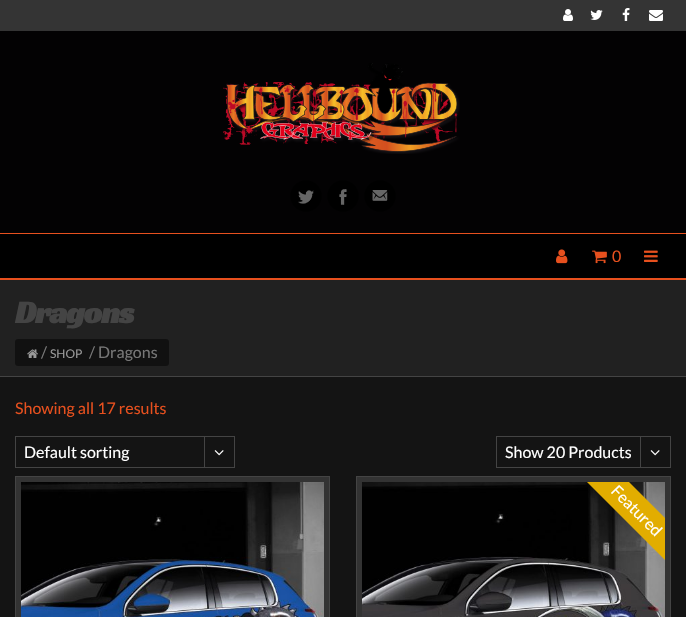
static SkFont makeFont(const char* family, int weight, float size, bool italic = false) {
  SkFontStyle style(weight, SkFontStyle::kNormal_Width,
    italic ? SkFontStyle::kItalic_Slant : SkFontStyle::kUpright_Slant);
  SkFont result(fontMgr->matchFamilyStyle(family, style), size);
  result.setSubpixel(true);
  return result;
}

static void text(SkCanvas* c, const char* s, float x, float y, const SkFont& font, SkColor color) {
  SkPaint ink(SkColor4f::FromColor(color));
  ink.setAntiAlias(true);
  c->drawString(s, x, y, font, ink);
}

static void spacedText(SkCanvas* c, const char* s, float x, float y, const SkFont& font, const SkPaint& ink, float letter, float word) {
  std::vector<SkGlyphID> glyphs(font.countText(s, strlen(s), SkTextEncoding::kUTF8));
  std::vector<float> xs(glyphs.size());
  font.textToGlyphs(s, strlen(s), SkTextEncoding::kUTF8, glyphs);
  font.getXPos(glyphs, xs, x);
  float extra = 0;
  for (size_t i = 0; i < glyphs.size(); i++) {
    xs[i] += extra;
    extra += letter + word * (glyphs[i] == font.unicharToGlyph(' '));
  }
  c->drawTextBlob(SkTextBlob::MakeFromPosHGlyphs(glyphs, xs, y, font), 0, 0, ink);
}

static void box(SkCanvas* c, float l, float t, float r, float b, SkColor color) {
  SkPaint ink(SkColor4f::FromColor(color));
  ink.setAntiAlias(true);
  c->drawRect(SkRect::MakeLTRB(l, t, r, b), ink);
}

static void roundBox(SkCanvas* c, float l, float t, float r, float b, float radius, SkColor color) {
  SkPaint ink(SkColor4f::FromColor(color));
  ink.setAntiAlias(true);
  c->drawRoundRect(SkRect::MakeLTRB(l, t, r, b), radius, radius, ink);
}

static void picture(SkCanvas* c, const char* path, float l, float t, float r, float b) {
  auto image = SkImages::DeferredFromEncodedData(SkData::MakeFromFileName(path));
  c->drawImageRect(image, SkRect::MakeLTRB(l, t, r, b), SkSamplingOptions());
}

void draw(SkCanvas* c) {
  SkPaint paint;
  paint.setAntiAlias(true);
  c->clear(0xff343434);
  picture(c, "img_01.png", 563, 9, 573, 21);
  picture(c, "img_02.png", 590, 10, 603, 20);
  picture(c, "img_03.png", 622, 8, 630, 21);
  picture(c, "img_04.png", 649, 10, 663, 21);
  box(c, 0, 31, 686, 233, 0xff030203);
  picture(c, "img_05.png", 223, 63, 460, 154);
  paint.setColor(0xff000000);
  c->drawCircle(306, 196, 16, paint);
  picture(c, "img_06.png", 298, 190, 314, 204);
  c->drawCircle(343, 196, 16, paint);
  picture(c, "img_07.png", 339, 189, 347, 205);
  c->drawCircle(380, 196, 16, paint);
  picture(c, "img_08.png", 372, 190, 388, 201);
  box(c, 0, 234, 686, 278, 0xff000000);
  box(c, 0, 233, 686, 234, 0xffe7501e);
  box(c, 0, 278, 686, 280, 0xffe7501e);
  picture(c, "img_09.png", 556, 249, 568, 264);
  picture(c, "img_10.png", 592, 250, 607, 264);
  SkFont face1 = makeFont("Lato", 400, 16);
  text(c, "0", 612, 262, face1, 0xffe7501e);
  picture(c, "img_11.png", 644, 250, 658, 262);
  box(c, 0, 280, 686, 376, 0xff212121);
  box(c, 0, 376, 686, 377, 0xff444444);
  SkFont face2 = makeFont("Racing Sans One", 700, 32);
  paint.setColor(0xff444444);
  spacedText(c, "Dragons", 15, 323, face2, paint, -1, 0);
  roundBox(c, 15, 339, 169, 366, 3, 0xff111111);
  picture(c, "img_12.png", 27, 349, 38, 358);
  text(c, "/", 41, 358, face1, 0xff777777);
  SkFont face3 = makeFont("Lato", 400, 12);
  text(c, "SHOP", 50, 358, face3, 0xff999999);
  text(c, "/ Dragons", 89, 358, face1, 0xff777777);
  box(c, 0, 377, 686, 617, 0xff141414);
  text(c, "Showing all 17 results", 15, 414, face1, 0xffe7501e);
  paint.setStyle(SkPaint::kStroke_Style);
  paint.setStrokeWidth(1);
  c->drawRect(SkRect::MakeLTRB(15.5f, 436.5f, 234.5f, 467.5f), paint);
  text(c, "Default sorting", 24, 458, face1, 0xffffffff);
  box(c, 204, 437, 205, 467, 0xff444444);
  picture(c, "img_13.png", 214, 450, 224, 456);
  c->drawRect(SkRect::MakeLTRB(496.5f, 436.5f, 670.5f, 467.5f), paint);
  text(c, "Show 20 Products", 505, 458, face1, 0xffffffff);
  box(c, 640, 437, 641, 467, 0xff444444);
  picture(c, "img_13.png", 650, 450, 660, 456);
  paint.setStyle(SkPaint::kFill_Style);
  paint.setColor(0xff333333);
  c->drawRect(SkRect::MakeLTRB(15.5f, 476.5f, 329.5f, 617.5f), paint);
  paint.setStyle(SkPaint::kStroke_Style);
  paint.setColor(0xff444444);
  c->drawRect(SkRect::MakeLTRB(15.5f, 476.5f, 329.5f, 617.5f), paint);
  picture(c, "img_14.png", 21, 482, 324, 617);
  paint.setStyle(SkPaint::kFill_Style);
  paint.setColor(0xff333333);
  c->drawRect(SkRect::MakeLTRB(356.5f, 476.5f, 670.5f, 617.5f), paint);
  paint.setStyle(SkPaint::kStroke_Style);
  paint.setColor(0xff444444);
  c->drawRect(SkRect::MakeLTRB(356.5f, 476.5f, 670.5f, 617.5f), paint);
  picture(c, "img_15.png", 362, 482, 665, 617);
  c->save();
  c->clipRect(SkRect::MakeLTRB(362, 482, 665, 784));
  paint.setStyle(SkPaint::kFill_Style);
  paint.setColor(0xffe2ad00);
  c->drawPath(SkPathBuilder().moveTo(605, 458).lineTo(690, 543).lineTo(669, 564).lineTo(584, 479).close().detach(), paint);
  c->restore();
  c->save();
  c->rotate(45, 610, 492);
  text(c, "Featured", 610, 492, face1, 0xffffffff);
  c->restore();
}
